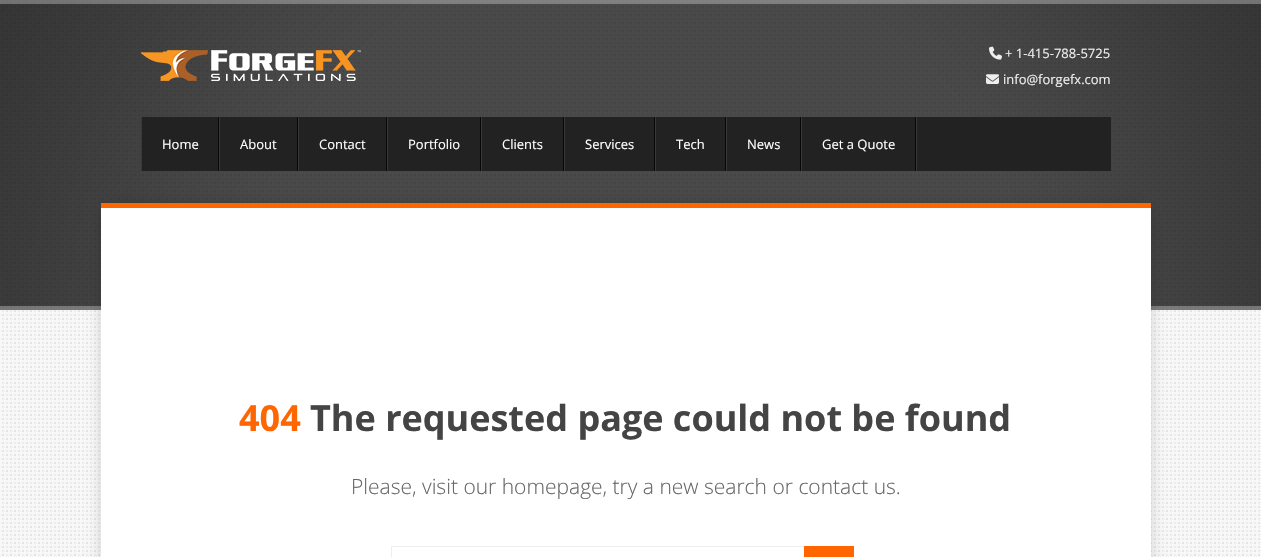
static SkFont makeFont(const char* family, int weight, float size, bool italic = false) {
  SkFontStyle style(weight, SkFontStyle::kNormal_Width,
    italic ? SkFontStyle::kItalic_Slant : SkFontStyle::kUpright_Slant);
  SkFont result(fontMgr->matchFamilyStyle(family, style), size);
  result.setSubpixel(true);
  return result;
}

static void text(SkCanvas* c, const char* s, float x, float y, const SkFont& font, SkColor color) {
  SkPaint ink(SkColor4f::FromColor(color));
  ink.setAntiAlias(true);
  c->drawString(s, x, y, font, ink);
}

static void box(SkCanvas* c, float l, float t, float r, float b, SkColor color) {
  SkPaint ink(SkColor4f::FromColor(color));
  ink.setAntiAlias(true);
  c->drawRect(SkRect::MakeLTRB(l, t, r, b), ink);
}

static void picture(SkCanvas* c, const char* path, float l, float t, float r, float b) {
  auto image = SkImages::DeferredFromEncodedData(SkData::MakeFromFileName(path));
  c->drawImageRect(image, SkRect::MakeLTRB(l, t, r, b), SkSamplingOptions());
}

void draw(SkCanvas* c) {
  SkPaint paint;
  paint.setAntiAlias(true);
  c->clear(0xffffffff);
  picture(c, "img_01.png", 0, 0, 1261, 557);
  box(c, 0, 0, 1261, 310, 0xb3000000);
  picture(c, "img_02.png", 0, 0, 1261, 310);
  box(c, 0, 0, 1261, 4, 0x4dffffff);
  box(c, 0, 306, 1261, 310, 0x4dffffff);
  picture(c, "img_03.png", 141, 50, 361, 81);
  picture(c, "img_04.png", 989, 46, 1002, 60);
  SkFont face1 = makeFont("Open Sans", 400, 13);
  text(c, "+ 1-415-788-5725", 1005, 58, face1, 0xffeeeeee);
  picture(c, "img_05.png", 986, 74, 999, 84);
  text(c, "info@forgefx.com", 1003, 84, face1, 0xffeeeeee);
  box(c, 142, 117, 1111, 171, 0xff222222);
  box(c, 916, 117, 917, 171, 0xff383838);
  box(c, 218, 117, 219, 171, 0xff070707);
  box(c, 141, 117, 142, 171, 0xff383838);
  text(c, "Home", 162, 149, face1, 0xffffffff);
  box(c, 297, 117, 298, 171, 0xff070707);
  box(c, 219, 117, 220, 171, 0xff383838);
  text(c, "About", 240, 149, face1, 0xffffffff);
  box(c, 386, 117, 387, 171, 0xff070707);
  box(c, 298, 117, 299, 171, 0xff383838);
  text(c, "Contact", 319, 149, face1, 0xffffffff);
  box(c, 480, 117, 481, 171, 0xff070707);
  box(c, 387, 117, 388, 171, 0xff383838);
  text(c, "Portfolio", 408, 149, face1, 0xffffffff);
  box(c, 563, 117, 564, 171, 0xff070707);
  box(c, 481, 117, 482, 171, 0xff383838);
  text(c, "Clients", 502, 149, face1, 0xffffffff);
  box(c, 654, 117, 655, 171, 0xff070707);
  box(c, 564, 117, 565, 171, 0xff383838);
  text(c, "Services", 585, 149, face1, 0xffffffff);
  box(c, 725, 117, 726, 171, 0xff070707);
  box(c, 655, 117, 656, 171, 0xff383838);
  text(c, "Tech", 676, 149, face1, 0xffffffff);
  box(c, 800, 117, 801, 171, 0xff070707);
  box(c, 726, 117, 727, 171, 0xff383838);
  text(c, "News", 747, 149, face1, 0xffffffff);
  box(c, 915, 117, 916, 171, 0xff070707);
  box(c, 801, 117, 802, 171, 0xff383838);
  text(c, "Get a Quote", 822, 149, face1, 0xffffffff);
  paint.setColor(0x26000000);
  paint.setMaskFilter(SkMaskFilter::MakeBlur(kNormal_SkBlurStyle, 7));
  c->drawRoundRect(SkRect::MakeLTRB(101, 203, 1151, 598), 20, 20, paint);
  paint.setMaskFilter(nullptr);
  box(c, 101, 208, 1151, 557, 0xffffffff);
  box(c, 101, 203, 1151, 208, 0xffff6600);
  SkFont face2 = makeFont("Open Sans", 700, 36);
  text(c, "404", 239, 431, face2, 0xffff6600);
  text(c, "The requested page could not be found", 310, 431, face2, 0xff444444);
  SkFont face3 = makeFont("Open Sans", 300, 21);
  text(c, "Please, visit our homepage, try a new search or contact us.", 351, 494, face3, 0xff666666);
  paint.setStyle(SkPaint::kStroke_Style);
  paint.setStrokeWidth(1);
  paint.setColor(0xffeeeeee);
  c->drawRect(SkRect::MakeLTRB(391.5f, 546.5f, 804.5f, 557.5f), paint);
  box(c, 804, 546, 854, 557, 0xffff6600);
}
